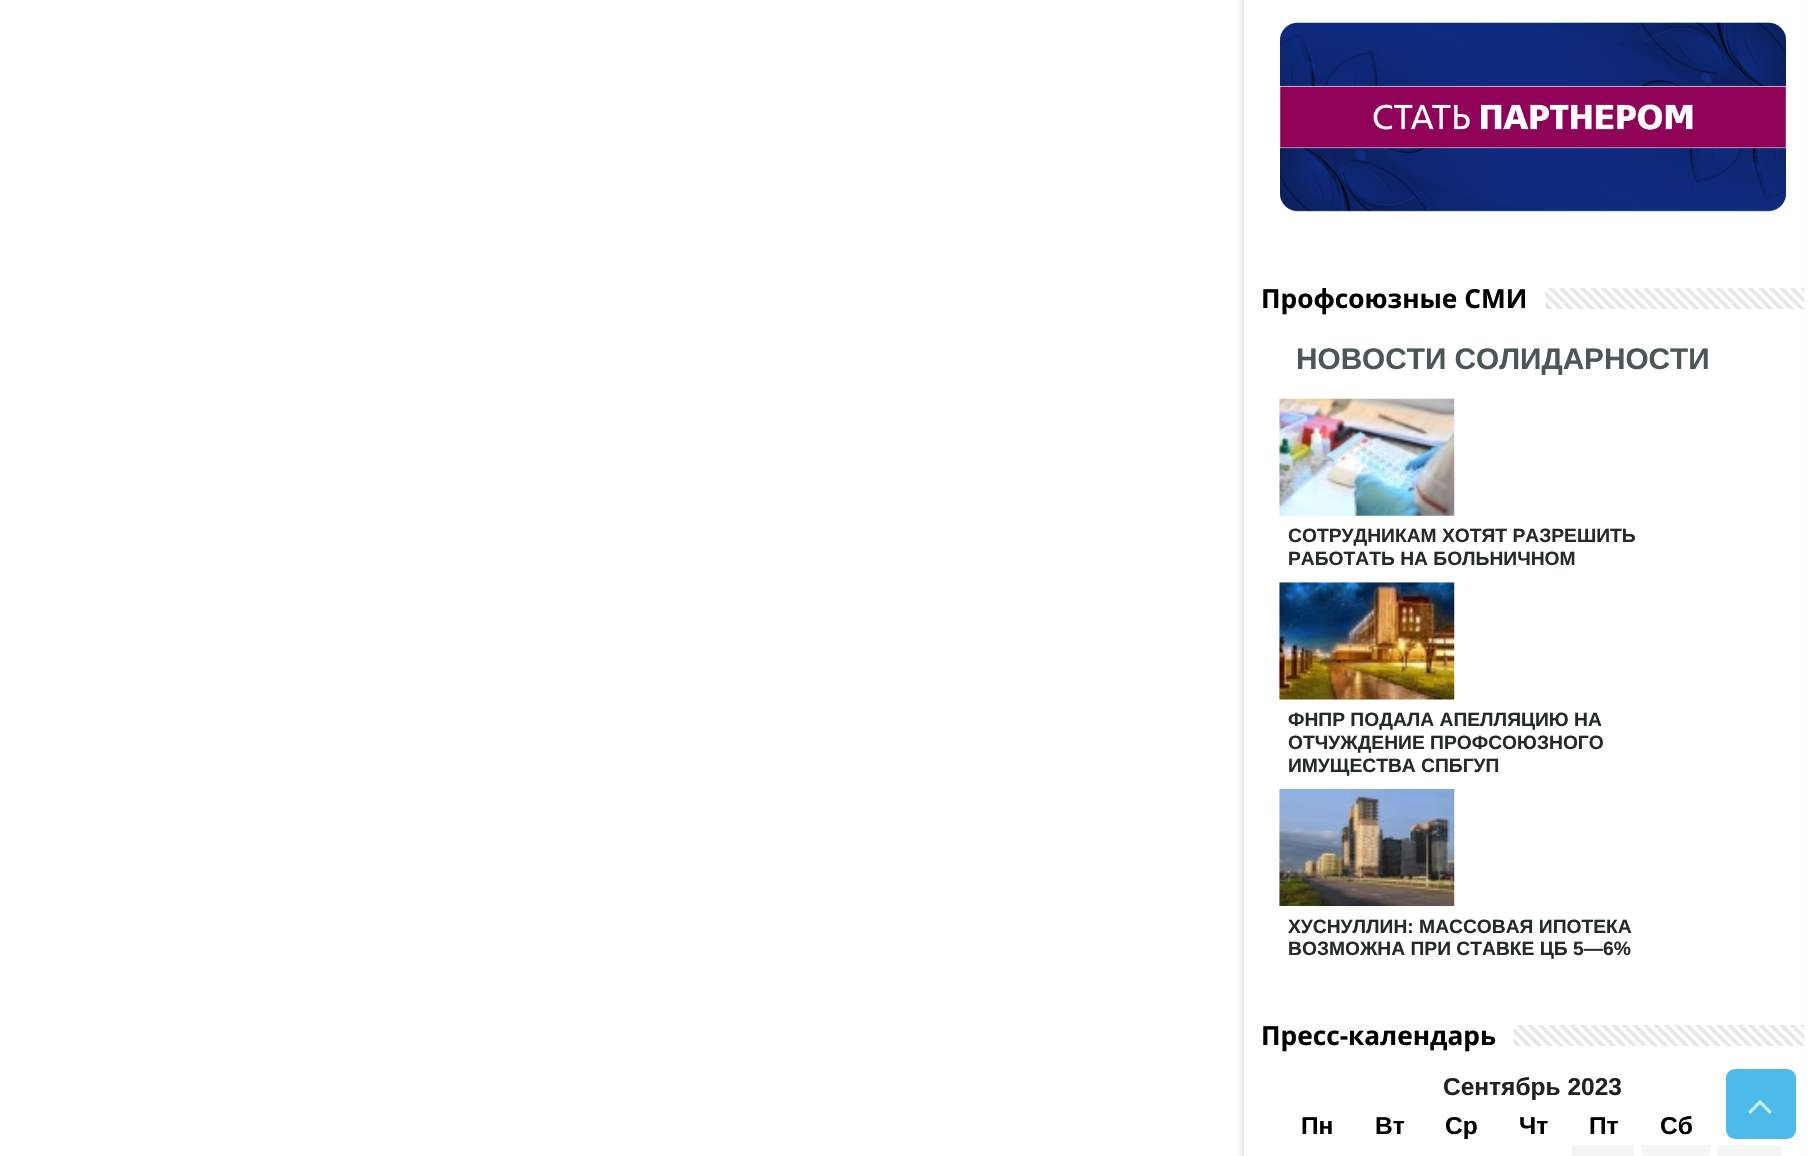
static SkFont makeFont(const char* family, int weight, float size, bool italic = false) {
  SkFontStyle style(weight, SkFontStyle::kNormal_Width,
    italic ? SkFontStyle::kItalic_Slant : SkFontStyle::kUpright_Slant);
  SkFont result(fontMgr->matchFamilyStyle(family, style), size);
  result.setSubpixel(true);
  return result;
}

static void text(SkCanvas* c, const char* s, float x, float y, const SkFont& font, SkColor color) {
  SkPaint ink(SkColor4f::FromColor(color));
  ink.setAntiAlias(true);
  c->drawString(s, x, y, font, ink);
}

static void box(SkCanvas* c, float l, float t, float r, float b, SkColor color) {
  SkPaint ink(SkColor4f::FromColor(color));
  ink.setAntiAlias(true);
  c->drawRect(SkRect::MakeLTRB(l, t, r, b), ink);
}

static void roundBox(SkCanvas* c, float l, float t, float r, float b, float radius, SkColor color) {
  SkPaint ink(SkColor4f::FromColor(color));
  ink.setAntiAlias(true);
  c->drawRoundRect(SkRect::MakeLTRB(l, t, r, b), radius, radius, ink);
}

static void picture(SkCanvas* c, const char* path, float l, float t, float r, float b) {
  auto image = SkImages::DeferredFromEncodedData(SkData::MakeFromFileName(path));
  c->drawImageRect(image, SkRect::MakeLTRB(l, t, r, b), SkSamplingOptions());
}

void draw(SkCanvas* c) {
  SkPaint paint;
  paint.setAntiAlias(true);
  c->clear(0xffffffff);
  c->save();
  c->clipPath(SkPathBuilder(SkPathFillType::kEvenOdd).moveTo(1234, 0).lineTo(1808, 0).lineTo(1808, 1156).lineTo(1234, 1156).close().moveTo(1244, -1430).lineTo(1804, -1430).lineTo(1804, 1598).lineTo(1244, 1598).close().detach(), true);
  paint.setColor(0x1a000000);
  paint.setMaskFilter(SkMaskFilter::MakeBlur(kNormal_SkBlurStyle, 2));
  c->drawRect(SkRect::MakeLTRB(1241, -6, 1801, 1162), paint);
  paint.setMaskFilter(nullptr);
  c->restore();
  picture(c, "img_01.png", 1280, 22, 1786, 212);
  SkFont face1 = makeFont("Open Sans", 700, 26.25f);
  text(c, "Профсоюзные СМИ", 1261, 308, face1, 0xff000000);
  picture(c, "img_02.png", 1545, 288, 1805, 310);
  SkFont face2 = makeFont("Liberation Sans", 700, 29.75f);
  text(c, "НОВОСТИ СОЛИДАРНОСТИ", 1296, 369, face2, 0xff4b5656);
  picture(c, "img_03.png", 1279, 398, 1455, 516);
  SkFont face3 = makeFont("Liberation Sans", 700, 19.25f);
  text(c, "СОТРУДНИКАМ ХОТЯТ РАЗРЕШИТЬ", 1288, 542, face3, 0xff232b2b);
  text(c, "РАБОТАТЬ НА БОЛЬНИЧНОМ", 1288, 565, face3, 0xff232b2b);
  picture(c, "img_04.png", 1279, 582, 1455, 700);
  text(c, "ФНПР ПОДАЛА АПЕЛЛЯЦИЮ НА", 1288, 726, face3, 0xff232b2b);
  text(c, "ОТЧУЖДЕНИЕ ПРОФСОЮЗНОГО", 1288, 749, face3, 0xff232b2b);
  text(c, "ИМУЩЕСТВА СПБГУП", 1288, 772, face3, 0xff232b2b);
  picture(c, "img_05.png", 1279, 788, 1455, 906);
  text(c, "ХУСНУЛЛИН: МАССОВАЯ ИПОТЕКА", 1288, 933, face3, 0xff232b2b);
  text(c, "ВОЗМОЖНА ПРИ СТАВКЕ ЦБ 5—6%", 1288, 955, face3, 0xff232b2b);
  text(c, "Пресс-календарь", 1261, 1045, face1, 0xff000000);
  picture(c, "img_06.png", 1513, 1025, 1805, 1046);
  SkFont face4 = makeFont("Liberation Sans", 700, 24.5f);
  text(c, "Сентябрь 2023", 1443, 1095, face4, 0xff222222);
  text(c, "Пн", 1301, 1134, face4, 0xff000000);
  text(c, "Вт", 1375, 1134, face4, 0xff000000);
  text(c, "Ср", 1445, 1134, face4, 0xff000000);
  text(c, "Чт", 1519, 1134, face4, 0xff000000);
  text(c, "Пт", 1589, 1134, face4, 0xff000000);
  text(c, "Сб", 1660, 1134, face4, 0xff000000);
  box(c, 1572, 1145, 1634, 1156, 0xfff5f5f5);
  box(c, 1642, 1145, 1710, 1156, 0xfff5f5f5);
  box(c, 1717, 1145, 1781, 1156, 0xfff5f5f5);
  roundBox(c, 1726, 1069, 1796, 1139, 9, 0xb3009edf);
  picture(c, "img_07.png", 1748, 1100, 1772, 1114);
}
